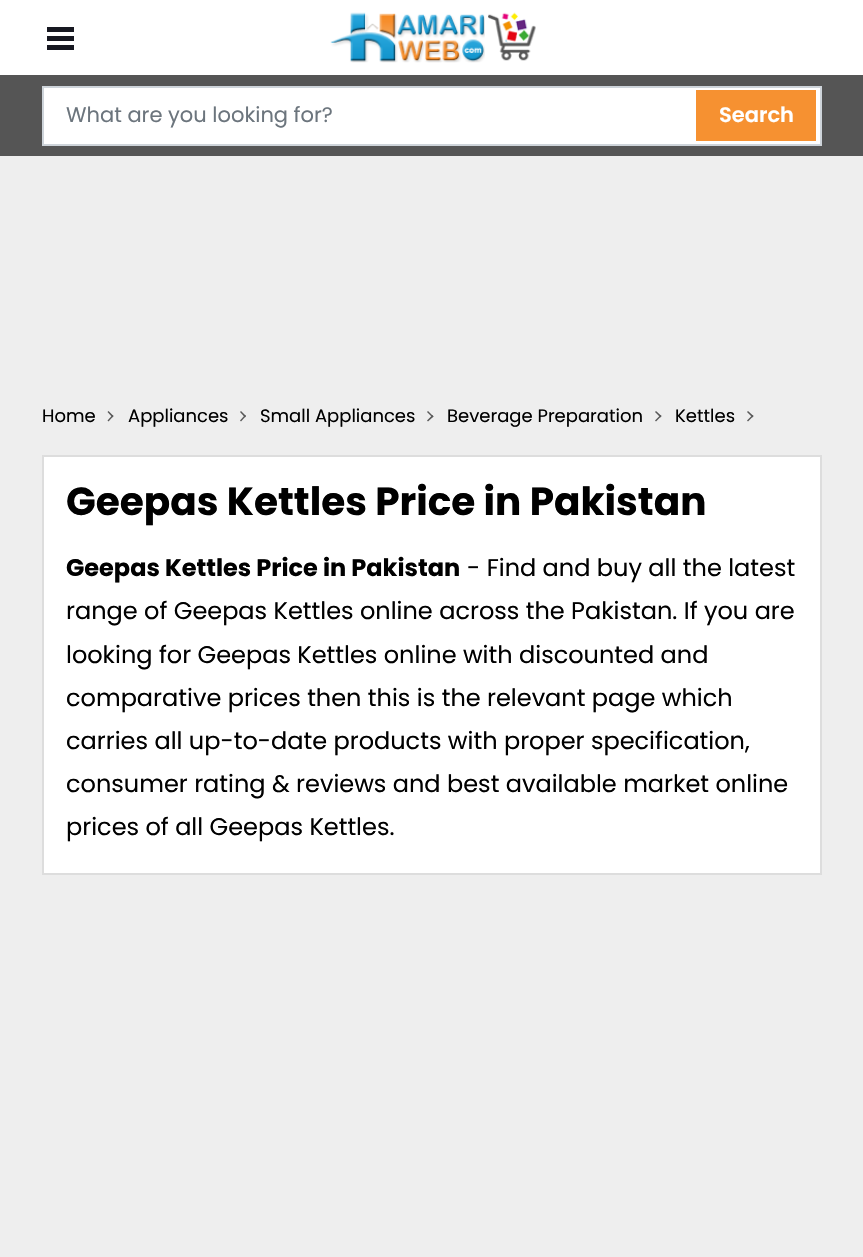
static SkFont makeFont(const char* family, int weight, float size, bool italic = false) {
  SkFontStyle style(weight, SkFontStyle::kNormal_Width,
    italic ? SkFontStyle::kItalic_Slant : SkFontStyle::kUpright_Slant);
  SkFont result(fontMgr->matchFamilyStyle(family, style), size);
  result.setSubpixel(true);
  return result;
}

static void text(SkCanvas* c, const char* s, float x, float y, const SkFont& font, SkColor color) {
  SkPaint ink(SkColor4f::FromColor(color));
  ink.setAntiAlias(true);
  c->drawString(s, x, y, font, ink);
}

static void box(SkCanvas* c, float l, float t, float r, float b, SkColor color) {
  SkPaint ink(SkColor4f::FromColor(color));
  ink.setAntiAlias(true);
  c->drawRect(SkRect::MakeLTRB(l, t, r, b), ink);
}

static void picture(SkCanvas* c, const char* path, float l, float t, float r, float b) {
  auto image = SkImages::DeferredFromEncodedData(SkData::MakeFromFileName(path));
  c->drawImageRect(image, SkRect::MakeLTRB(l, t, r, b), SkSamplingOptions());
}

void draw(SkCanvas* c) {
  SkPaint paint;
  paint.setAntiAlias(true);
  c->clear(0xffeeeeee);
  box(c, 0, 0, 863, 75, 0xffffffff);
  box(c, 47, 36, 74, 41, 0xff171821);
  box(c, 47, 27, 74, 32, 0xff171821);
  box(c, 47, 45, 74, 50, 0xff171821);
  picture(c, "img_01.png", 330, 12, 536, 63);
  box(c, 0, 75, 863, 156, 0xff555555);
  paint.setColor(0xffffffff);
  c->drawRect(SkRect::MakeLTRB(43, 87, 821, 145), paint);
  paint.setStyle(SkPaint::kStroke_Style);
  paint.setStrokeWidth(2);
  paint.setColor(0xffced4da);
  c->drawRect(SkRect::MakeLTRB(43, 87, 821, 145), paint);
  SkFont face1 = makeFont("Poppins", 400, 21);
  text(c, "What are you looking for?", 66, 122, face1, 0xff6c757d);
  box(c, 696, 90, 816, 141, 0xfff69131);
  SkFont face2 = makeFont("Poppins", 600, 21);
  text(c, "Search", 719, 122, face2, 0xffffffff);
  SkFont face3 = makeFont("Poppins", 400, 18);
  text(c, "Home", 42, 422, face3, 0xff000000);
  paint.setStyle(SkPaint::kFill_Style);
  paint.setColor(0xff595959);
  c->drawPath(SkPathBuilder().moveTo(107.5f, 412).lineTo(108.5f, 411).lineTo(113.5f, 416).lineTo(112.5f, 417.5f).close().detach(), paint);
  c->drawPath(SkPathBuilder().moveTo(107.5f, 420.5f).lineTo(112.5f, 415).lineTo(113.5f, 416).lineTo(108.5f, 421.5f).close().detach(), paint);
  text(c, "Appliances", 128, 422, face3, 0xff000000);
  c->drawPath(SkPathBuilder().moveTo(240, 412).lineTo(241, 411).lineTo(246, 416).lineTo(245, 417.5f).close().detach(), paint);
  c->drawPath(SkPathBuilder().moveTo(240, 420.5f).lineTo(245, 415).lineTo(246, 416).lineTo(241, 421.5f).close().detach(), paint);
  text(c, "Small Appliances", 260, 422, face3, 0xff000000);
  c->drawPath(SkPathBuilder().moveTo(427, 412).lineTo(428, 411).lineTo(433.5f, 416.5f).lineTo(432.5f, 417.5f).close().detach(), paint);
  c->drawPath(SkPathBuilder().moveTo(427, 420.5f).lineTo(432.5f, 415).lineTo(433.5f, 416.5f).lineTo(428, 421.5f).close().detach(), paint);
  text(c, "Beverage Preparation", 447, 422, face3, 0xff000000);
  c->drawPath(SkPathBuilder().moveTo(655, 412).lineTo(656, 411).lineTo(661.5f, 416).lineTo(660.5f, 417.5f).close().detach(), paint);
  c->drawPath(SkPathBuilder().moveTo(655, 420.5f).lineTo(660.5f, 415).lineTo(661.5f, 416).lineTo(656, 421.5f).close().detach(), paint);
  text(c, "Kettles", 675, 422, face3, 0xff000000);
  c->drawPath(SkPathBuilder().moveTo(747, 412).lineTo(748, 411).lineTo(753.5f, 416).lineTo(752.5f, 417.5f).close().detach(), paint);
  c->drawPath(SkPathBuilder().moveTo(747, 420.5f).lineTo(752.5f, 415).lineTo(753.5f, 416).lineTo(748, 421.5f).close().detach(), paint);
  paint.setColor(0xffffffff);
  c->drawRect(SkRect::MakeLTRB(43, 456, 821, 874), paint);
  paint.setStyle(SkPaint::kStroke_Style);
  paint.setColor(0xffdddddd);
  c->drawRect(SkRect::MakeLTRB(43, 456, 821, 874), paint);
  SkFont face4 = makeFont("Poppins", 700, 39);
  text(c, "Geepas Kettles Price in Pakistan", 66, 515, face4, 0xff000000);
  SkFont face5 = makeFont("Poppins", 700, 24);
  text(c, "Geepas Kettles Price in Pakistan", 66, 576, face5, 0xff000000);
  SkFont face6 = makeFont("Poppins", 400, 24);
  text(c, "- Find and buy all the latest", 467, 576, face6, 0xff000000);
  text(c, "range of Geepas Kettles online across the Pakistan. If you are", 66, 619, face6, 0xff000000);
  text(c, "looking for Geepas Kettles online with discounted and", 66, 663, face6, 0xff000000);
  text(c, "comparative prices then this is the relevant page which", 66, 706, face6, 0xff000000);
  text(c, "carries all up-to-date products with proper specification,", 66, 749, face6, 0xff000000);
  text(c, "consumer rating & reviews and best available market online", 66, 792, face6, 0xff000000);
  text(c, "prices of all Geepas Kettles.", 66, 835, face6, 0xff000000);
}
